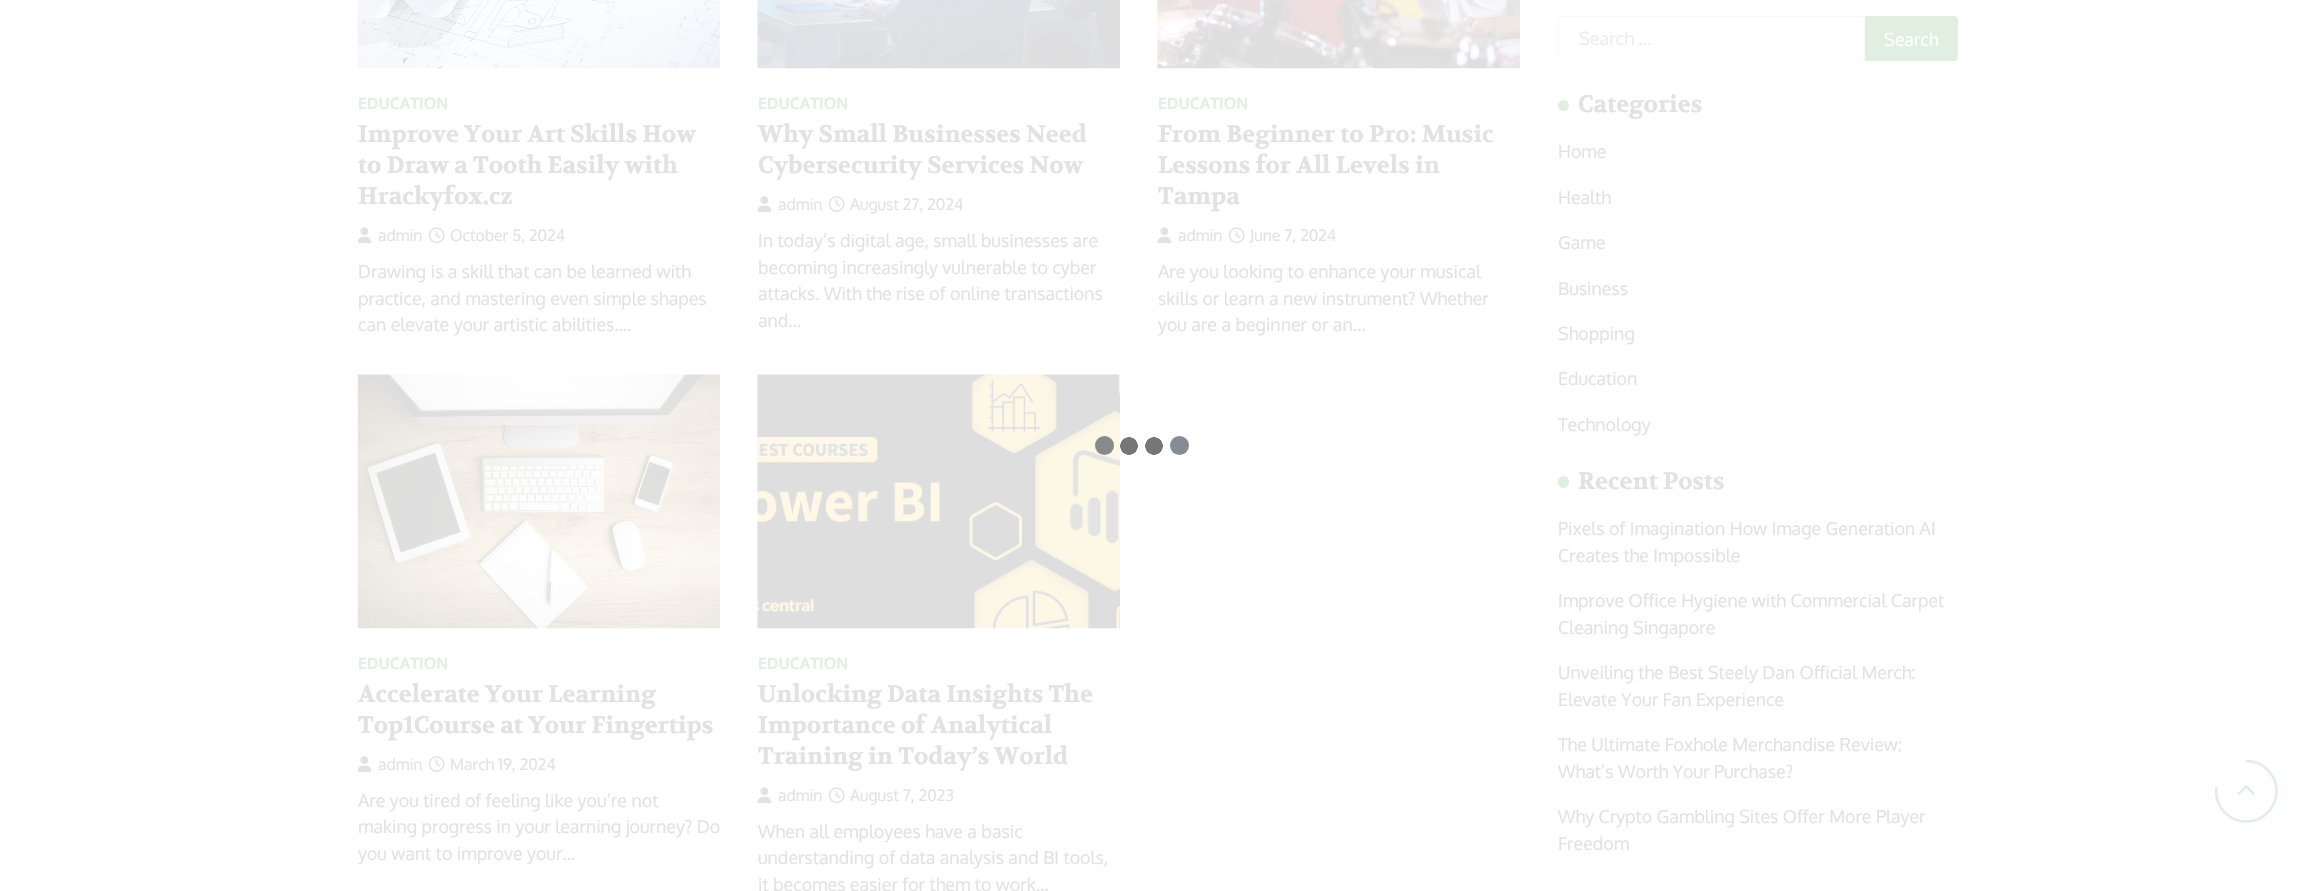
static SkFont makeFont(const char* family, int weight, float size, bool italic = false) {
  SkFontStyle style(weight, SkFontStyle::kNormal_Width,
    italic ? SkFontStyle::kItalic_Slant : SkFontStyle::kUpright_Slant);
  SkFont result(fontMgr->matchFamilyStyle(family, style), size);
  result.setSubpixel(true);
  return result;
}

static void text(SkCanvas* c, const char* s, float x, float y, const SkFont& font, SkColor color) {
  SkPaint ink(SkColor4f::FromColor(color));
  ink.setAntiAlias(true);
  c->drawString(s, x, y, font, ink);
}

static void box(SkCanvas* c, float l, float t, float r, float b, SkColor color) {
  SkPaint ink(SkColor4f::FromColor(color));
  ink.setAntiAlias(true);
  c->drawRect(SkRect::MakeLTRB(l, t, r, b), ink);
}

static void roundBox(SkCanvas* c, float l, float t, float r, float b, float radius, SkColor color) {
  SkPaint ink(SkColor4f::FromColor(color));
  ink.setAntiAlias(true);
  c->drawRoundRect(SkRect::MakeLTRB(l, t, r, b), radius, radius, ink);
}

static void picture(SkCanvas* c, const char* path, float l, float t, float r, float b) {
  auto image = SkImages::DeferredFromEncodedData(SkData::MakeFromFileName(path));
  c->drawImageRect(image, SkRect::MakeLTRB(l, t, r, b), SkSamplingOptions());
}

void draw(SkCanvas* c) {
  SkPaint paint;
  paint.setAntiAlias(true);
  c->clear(0xffffffff);
  picture(c, "img_01.png", 357, 0, 720, 69);
  SkFont face1 = makeFont("Oxygen", 700, 15.75f);
  text(c, "EDUCATION", 358, 109, face1, 0xffe1efe1);
  SkFont face2 = makeFont("Volkhov", 700, 23.75f);
  text(c, "Improve Your Art Skills How", 358, 142, face2, 0xffe2e2e3);
  text(c, "to Draw a Tooth Easily with", 358, 173, face2, 0xffe2e2e3);
  text(c, "Hrackyfox.cz", 358, 204, face2, 0xffe2e2e3);
  picture(c, "img_02.png", 358, 227, 372, 244);
  SkFont face3 = makeFont("Oxygen", 400, 15.75f);
  text(c, "admin", 378, 241, face3, 0xffe2e2e3);
  picture(c, "img_03.png", 428, 227, 445, 244);
  text(c, "October 5, 2024", 450, 241, face3, 0xffe2e2e3);
  SkFont face4 = makeFont("Oxygen", 400, 17.8f);
  text(c, "Drawing is a skill that can be learned with", 358, 278, face4, 0xffe2e2e3);
  text(c, "practice, and mastering even simple shapes", 358, 305, face4, 0xffe2e2e3);
  text(c, "can elevate your artistic abilities.…", 358, 331, face4, 0xffe2e2e3);
  picture(c, "img_04.png", 757, 0, 1120, 69);
  text(c, "EDUCATION", 758, 109, face1, 0xffe1efe1);
  text(c, "Why Small Businesses Need", 758, 142, face2, 0xffe2e2e3);
  text(c, "Cybersecurity Services Now", 758, 173, face2, 0xffe2e2e3);
  picture(c, "img_05.png", 757, 196, 772, 212);
  text(c, "admin", 778, 210, face3, 0xffe2e2e3);
  picture(c, "img_06.png", 828, 196, 845, 212);
  text(c, "August 27, 2024", 850, 210, face3, 0xffe2e2e3);
  text(c, "In today’s digital age, small businesses are", 758, 247, face4, 0xffe2e2e3);
  text(c, "becoming increasingly vulnerable to cyber", 758, 274, face4, 0xffe2e2e3);
  text(c, "attacks. With the rise of online transactions", 758, 300, face4, 0xffe2e2e3);
  text(c, "and…", 758, 327, face4, 0xffe2e2e3);
  picture(c, "img_07.png", 1157, 0, 1520, 69);
  text(c, "EDUCATION", 1158, 109, face1, 0xffe1efe1);
  text(c, "From Beginner to Pro: Music", 1158, 142, face2, 0xffe2e2e3);
  text(c, "Lessons for All Levels in", 1158, 173, face2, 0xffe2e2e3);
  text(c, "Tampa", 1158, 204, face2, 0xffe2e2e3);
  picture(c, "img_08.png", 1157, 227, 1172, 244);
  text(c, "admin", 1178, 241, face3, 0xffe2e2e3);
  picture(c, "img_03.png", 1228, 227, 1245, 244);
  text(c, "June 7, 2024", 1250, 241, face3, 0xffe2e2e3);
  text(c, "Are you looking to enhance your musical", 1158, 278, face4, 0xffe2e2e3);
  text(c, "skills or learn a new instrument? Whether", 1158, 305, face4, 0xffe2e2e3);
  text(c, "you are a beginner or an…", 1158, 331, face4, 0xffe2e2e3);
  picture(c, "img_09.png", 357, 374, 720, 629);
  text(c, "EDUCATION", 358, 669, face1, 0xffe1efe1);
  text(c, "Accelerate Your Learning", 358, 702, face2, 0xffe2e2e3);
  text(c, "Top1Course at Your Fingertips", 358, 733, face2, 0xffe2e2e3);
  picture(c, "img_10.png", 358, 756, 372, 772);
  text(c, "admin", 378, 770, face3, 0xffe2e2e3);
  picture(c, "img_06.png", 428, 756, 445, 772);
  text(c, "March 19, 2024", 450, 770, face3, 0xffe2e2e3);
  text(c, "Are you tired of feeling like you’re not", 358, 807, face4, 0xffe2e2e3);
  text(c, "making progress in your learning journey? Do", 358, 833, face4, 0xffe2e2e3);
  c->save();
  c->clipRect(SkRect::MakeLTRB(358, 0, 1520, 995));
  text(c, "you want to improve your…", 358, 860, face4, 0xffe2e2e3);
  c->restore();
  picture(c, "img_11.png", 757, 374, 1120, 629);
  text(c, "EDUCATION", 758, 669, face1, 0xffe1efe1);
  text(c, "Unlocking Data Insights The", 758, 702, face2, 0xffe2e2e3);
  text(c, "Importance of Analytical", 758, 733, face2, 0xffe2e2e3);
  text(c, "Training in Today’s World", 758, 764, face2, 0xffe2e2e3);
  picture(c, "img_08.png", 757, 787, 772, 804);
  text(c, "admin", 778, 801, face3, 0xffe2e2e3);
  picture(c, "img_03.png", 828, 787, 845, 804);
  text(c, "August 7, 2023", 850, 801, face3, 0xffe2e2e3);
  text(c, "When all employees have a basic", 758, 838, face4, 0xffe2e2e3);
  text(c, "understanding of data analysis and BI tools,", 758, 864, face4, 0xffe2e2e3);
  text(c, "it becomes easier for them to work…", 758, 891, face4, 0xffe2e2e3);
  paint.setStyle(SkPaint::kStroke_Style);
  paint.setStrokeWidth(1);
  paint.setColor(0xfff9f9f9);
  c->drawPath(SkPathBuilder().moveTo(1562, 16.5f).lineTo(1864.5f, 16.5f).lineTo(1864.5f, 60.5f).lineTo(1562, 60.5f).cubicTo(1560, 60.5f, 1558.5f, 59, 1558.5f, 57).lineTo(1558.5f, 20).cubicTo(1558.5f, 18, 1560, 16.5f, 1562, 16.5f).close().detach(), paint);
  SkFont face5 = makeFont("Oxygen", 400, 18);
  text(c, "Search …", 1579, 45, face5, 0xffededed);
  paint.setStyle(SkPaint::kFill_Style);
  paint.setColor(0xffe1efe1);
  c->drawPath(SkPathBuilder().moveTo(1865.5f, 16.5f).lineTo(1954, 16.5f).cubicTo(1956, 16.5f, 1957.5f, 18, 1957.5f, 20).lineTo(1957.5f, 57).cubicTo(1957.5f, 59, 1956, 60.5f, 1954, 60.5f).lineTo(1865.5f, 60.5f).close().detach(), paint);
  paint.setStyle(SkPaint::kStroke_Style);
  c->drawPath(SkPathBuilder().moveTo(1865.5f, 16.5f).lineTo(1954, 16.5f).cubicTo(1956, 16.5f, 1957.5f, 18, 1957.5f, 20).lineTo(1957.5f, 57).cubicTo(1957.5f, 59, 1956, 60.5f, 1954, 60.5f).lineTo(1865.5f, 60.5f).close().detach(), paint);
  text(c, "Search", 1884, 46, face4, 0xffffffff);
  paint.setStyle(SkPaint::kFill_Style);
  c->drawCircle(1563.5f, 105.5f, 5.5f, paint);
  text(c, "Categories", 1578, 112, face2, 0xffe2e2e3);
  box(c, 1715, 103, 1958, 104, 0xfffbfbfb);
  box(c, 1715, 106, 1958, 107, 0xfffbfbfb);
  box(c, 1558, 174, 1958, 175, 0xfffcfcfc);
  text(c, "Home", 1558, 158, face4, 0xffe2e2e3);
  box(c, 1558, 219, 1958, 220, 0xfffcfcfc);
  text(c, "Health", 1558, 204, face4, 0xffe2e2e3);
  box(c, 1558, 265, 1958, 266, 0xfffcfcfc);
  text(c, "Game", 1558, 249, face4, 0xffe2e2e3);
  box(c, 1558, 310, 1958, 311, 0xfffcfcfc);
  text(c, "Business", 1558, 295, face4, 0xffe2e2e3);
  box(c, 1558, 355, 1958, 356, 0xfffcfcfc);
  text(c, "Shopping", 1558, 340, face4, 0xffe2e2e3);
  box(c, 1558, 401, 1958, 402, 0xfffcfcfc);
  text(c, "Education", 1558, 385, face4, 0xffe2e2e3);
  text(c, "Technology", 1558, 431, face4, 0xffe2e2e3);
  roundBox(c, 1558, 476, 1569, 488, 5.5f, 0xffe1efe1);
  text(c, "Recent Posts", 1578, 489, face2, 0xffe2e2e3);
  box(c, 1736, 479, 1958, 480, 0xfffbfbfb);
  box(c, 1736, 483, 1958, 484, 0xfffbfbfb);
  box(c, 1558, 578, 1958, 579, 0xfffcfcfc);
  text(c, "Pixels of Imagination How Image Generation AI", 1558, 535, face4, 0xffe2e2e3);
  text(c, "Creates the Impossible", 1558, 562, face4, 0xffe2e2e3);
  box(c, 1558, 649, 1958, 650, 0xfffcfcfc);
  text(c, "Improve Office Hygiene with Commercial Carpet", 1558, 607, face4, 0xffe2e2e3);
  text(c, "Cleaning Singapore", 1558, 634, face4, 0xffe2e2e3);
  box(c, 1558, 721, 1958, 722, 0xfffcfcfc);
  text(c, "Unveiling the Best Steely Dan Official Merch:", 1558, 679, face4, 0xffe2e2e3);
  text(c, "Elevate Your Fan Experience", 1558, 706, face4, 0xffe2e2e3);
  box(c, 1558, 794, 1958, 795, 0xfffcfcfc);
  text(c, "The Ultimate Foxhole Merchandise Review:", 1558, 751, face4, 0xffe2e2e3);
  text(c, "What’s Worth Your Purchase?", 1558, 778, face4, 0xffe2e2e3);
  text(c, "Why Crypto Gambling Sites Offer More Player", 1558, 823, face4, 0xffe2e2e3);
  text(c, "Freedom", 1558, 850, face4, 0xffe2e2e3);
  {
    const SkColor colors[] = {0xff757678, 0xffffffff};
    const float stops[] = {0.95f, 1};
    paint.setShader(SkGradientShader::MakeRadial({1154, 446}, 9, colors, stops, 2, SkTileMode::kClamp));
    paint.setAlpha(255);
  }
  c->drawRect(SkRect::MakeLTRB(1145, 437, 1163, 455), paint);
  {
    const SkColor colors[] = {0xff757678, 0xffffffff};
    const float stops[] = {0.95f, 1};
    paint.setShader(SkGradientShader::MakeRadial({1129, 446}, 9, colors, stops, 2, SkTileMode::kClamp));
    paint.setAlpha(255);
  }
  c->drawRect(SkRect::MakeLTRB(1120, 437, 1138, 455), paint);
  paint.setShader(nullptr);
  paint.setColor(0xff87898b);
  c->drawCircle(1104.5f, 445.5f, 9.5f, paint);
  paint.setColor(0xff878c94);
  c->drawCircle(1179.5f, 445.5f, 9.5f, paint);
  picture(c, "img_12.png", 2237, 785, 2255, 795);
  c->save();
  c->clipRect(SkRect::MakeLTRB(2215, 760, 2278, 823));
  paint.setStyle(SkPaint::kStroke_Style);
  paint.setStrokeWidth(2.5f);
  paint.setColor(0xffe1efe1);
  c->drawPath(SkPathBuilder().moveTo(2246, 761).cubicTo(2263, 761, 2276.5f, 774.5f, 2276.5f, 791).cubicTo(2276.5f, 808, 2263, 821.5f, 2246, 821.5f).cubicTo(2229.5f, 821.5f, 2216, 808, 2216, 791).lineTo(2216.5f, 787).detach(), paint);
  c->restore();
}
